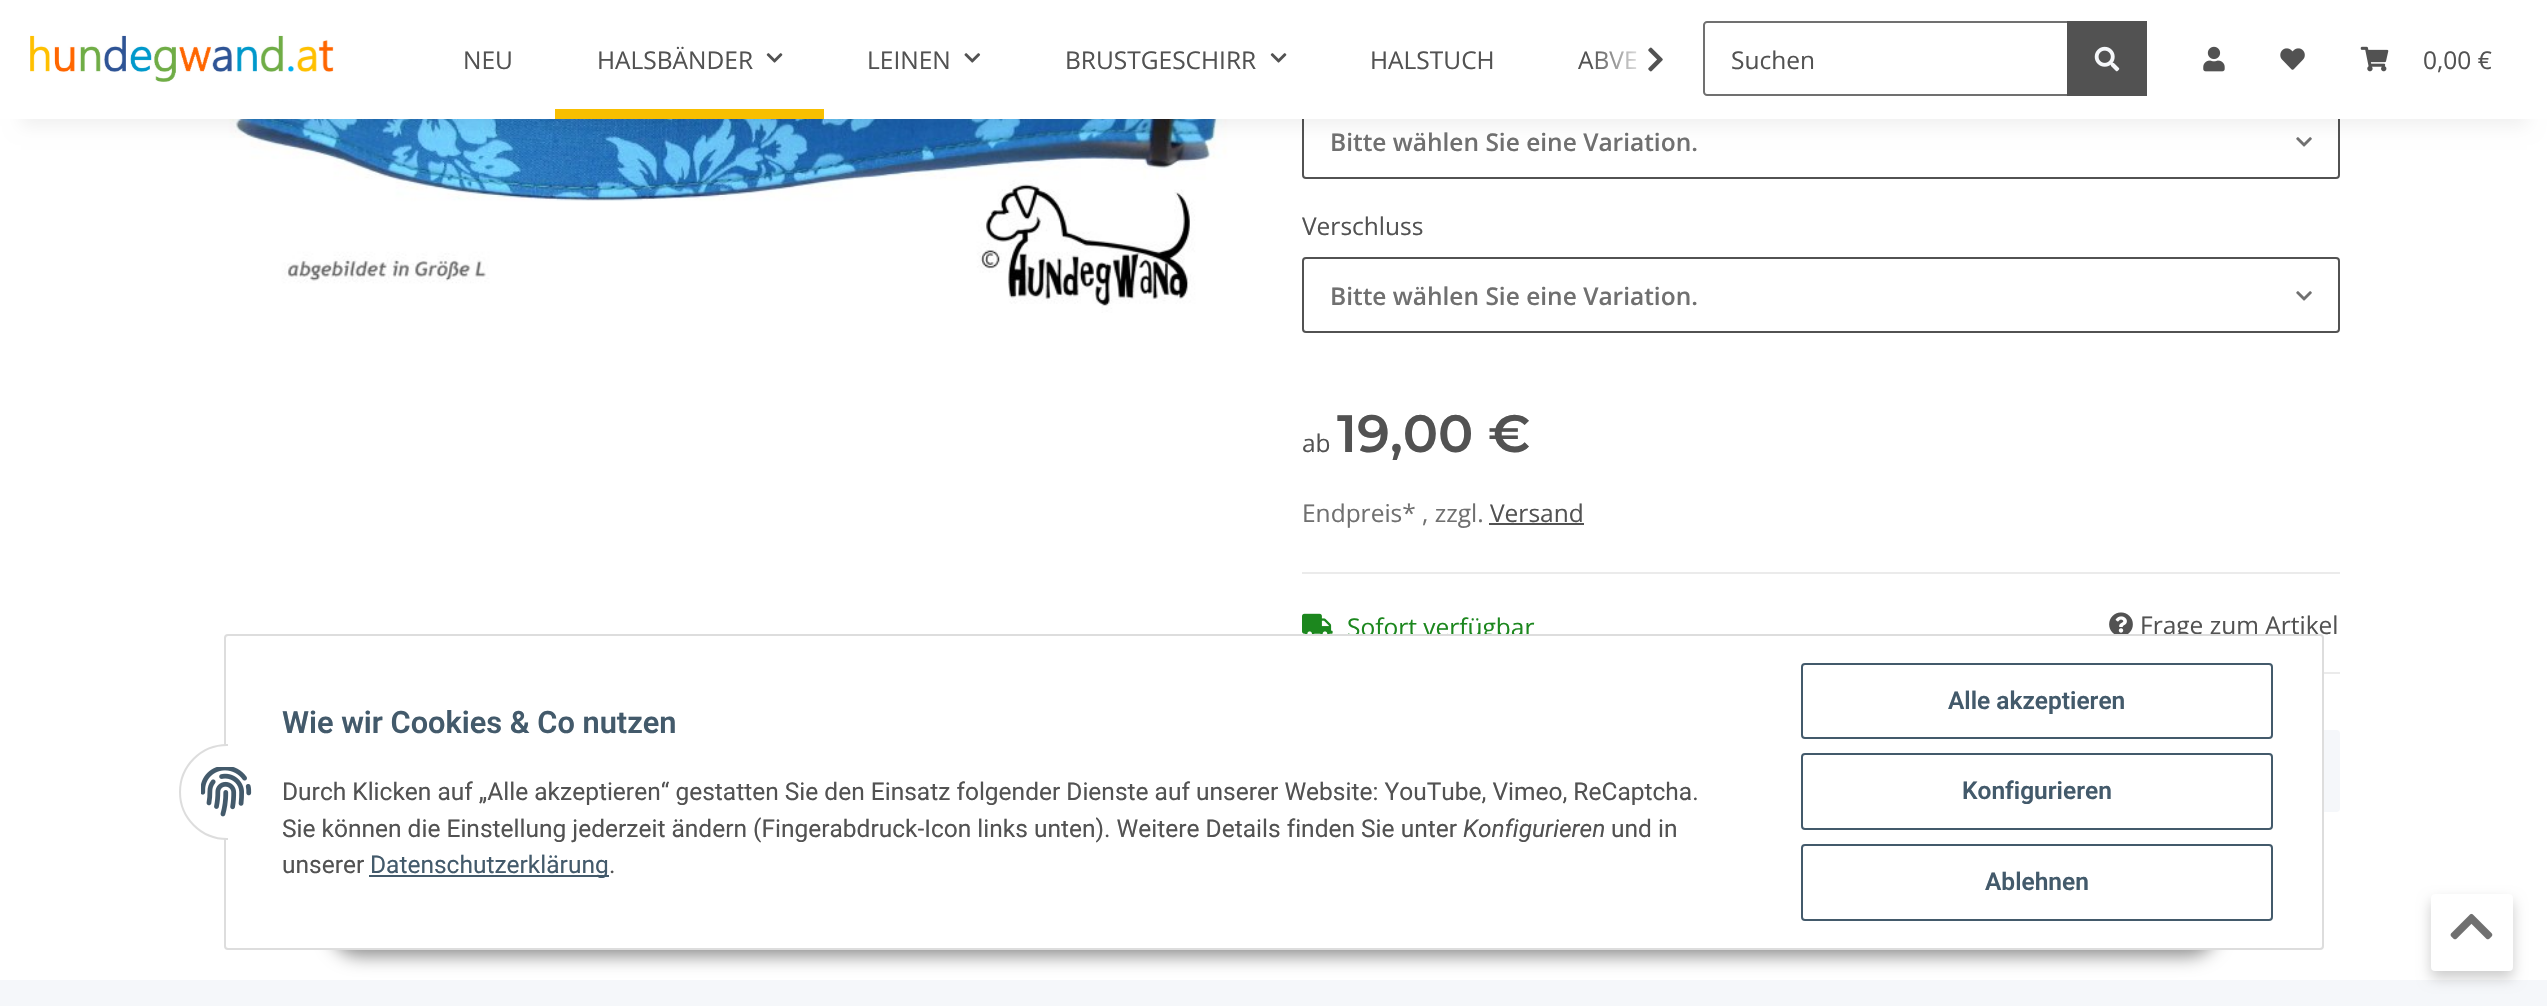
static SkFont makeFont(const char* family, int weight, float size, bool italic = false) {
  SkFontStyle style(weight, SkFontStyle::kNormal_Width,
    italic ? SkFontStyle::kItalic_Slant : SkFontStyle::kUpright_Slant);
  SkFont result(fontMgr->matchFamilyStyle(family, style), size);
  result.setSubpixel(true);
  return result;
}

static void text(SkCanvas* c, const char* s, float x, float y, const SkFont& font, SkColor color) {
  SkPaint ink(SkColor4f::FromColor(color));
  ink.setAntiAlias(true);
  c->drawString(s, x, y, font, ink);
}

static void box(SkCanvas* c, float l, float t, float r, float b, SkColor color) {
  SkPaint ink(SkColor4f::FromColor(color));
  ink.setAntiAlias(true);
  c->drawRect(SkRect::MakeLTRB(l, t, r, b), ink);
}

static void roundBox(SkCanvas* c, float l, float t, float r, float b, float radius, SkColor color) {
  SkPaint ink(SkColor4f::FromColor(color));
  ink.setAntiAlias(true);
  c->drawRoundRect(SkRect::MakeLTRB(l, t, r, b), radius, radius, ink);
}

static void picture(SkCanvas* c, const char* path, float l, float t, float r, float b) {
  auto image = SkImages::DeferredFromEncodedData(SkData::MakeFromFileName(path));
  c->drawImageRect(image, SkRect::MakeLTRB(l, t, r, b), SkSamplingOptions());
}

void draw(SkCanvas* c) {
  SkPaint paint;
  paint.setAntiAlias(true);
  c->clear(0xfff5f7fa);
  box(c, 0, 119, 2547, 980, 0xffffffff);
  picture(c, "img_09.png", 209, 119, 1236, 313);
  paint.setColor(0xffffffff);
  c->drawRoundRect(SkRect::MakeLTRB(1303, 104, 2339, 178), 3, 3, paint);
  paint.setStyle(SkPaint::kStroke_Style);
  paint.setStrokeWidth(2);
  paint.setColor(0xff525252);
  c->drawRoundRect(SkRect::MakeLTRB(1303, 104, 2339, 178), 3, 3, paint);
  picture(c, "img_10.png", 2296, 137, 2312, 147);
  paint.setStyle(SkPaint::kFill_Style);
  paint.setColor(0x0f000000);
  paint.setMaskFilter(SkMaskFilter::MakeBlur(kNormal_SkBlurStyle, 8));
  c->drawRect(SkRect::MakeLTRB(21, 49, 2527, 126), paint);
  paint.setMaskFilter(nullptr);
  box(c, 0, 0, 2547, 119, 0xffffffff);
  picture(c, "img_01.png", 30, 35, 334, 82);
  SkFont face1 = makeFont("Open Sans", 400, 24.5f);
  text(c, "NEU", 463, 69, face1, 0xff525252);
  text(c, "HALSBÄNDER", 597, 69, face1, 0xff525252);
  picture(c, "img_02.png", 766, 53, 783, 63);
  box(c, 555, 109, 824, 119, 0xfff8bf00);
  text(c, "LEINEN", 867, 69, face1, 0xff525252);
  picture(c, "img_03.png", 964, 53, 981, 63);
  text(c, "BRUSTGESCHIRR", 1065, 69, face1, 0xff525252);
  picture(c, "img_02.png", 1270, 53, 1287, 63);
  text(c, "HALSTUCH", 1370, 69, face1, 0xff525252);
  text(c, "ABVE", 1578, 69, face1, 0xff525252);
  {
    const SkColor colors[] = {0x03ffffff, 0xffffffff};
    const float stops[] = {0, 0.7f};
    const SkPoint ends[] = {{1591, 60}, {1675, 60}};
    paint.setShader(SkGradientShader::MakeLinear(ends, colors, stops, 2, SkTileMode::kClamp));
    paint.setAlpha(255);
  }
  c->drawRect(SkRect::MakeLTRB(1592, 51, 1637, 69), paint);
  picture(c, "img_04.png", 1648, 47, 1663, 72);
  paint.setStyle(SkPaint::kStroke_Style);
  paint.setShader(nullptr);
  paint.setColor(0xff707070);
  c->drawPath(SkPathBuilder().moveTo(1707, 22).lineTo(2068, 22).lineTo(2068, 95).lineTo(1707, 95).cubicTo(1705.5f, 95, 1704, 93.5f, 1704, 92).lineTo(1704, 25).cubicTo(1704, 23.5f, 1705.5f, 22, 1707, 22).close().detach(), paint);
  text(c, "Suchen", 1731, 69, face1, 0xff525252);
  box(c, 2067, 21, 2147, 96, 0xff525252);
  picture(c, "img_05.png", 2094, 46, 2120, 72);
  picture(c, "img_06.png", 2203, 46, 2225, 72);
  picture(c, "img_07.png", 2280, 48, 2305, 70);
  picture(c, "img_08.png", 2360, 46, 2389, 72);
  text(c, "0,00 €", 2423, 69, face1, 0xff525252);
  SkFont face2 = makeFont("Open Sans", 600, 24.5f);
  text(c, "Bitte wählen Sie eine Variation.", 1330, 151, face2, 0xff707070);
  text(c, "Verschluss", 1302, 235, face1, 0xff525252);
  paint.setColor(0xff525252);
  c->drawRoundRect(SkRect::MakeLTRB(1303, 258, 2339, 332), 3, 3, paint);
  text(c, "Bitte wählen Sie eine Variation.", 1330, 305, face2, 0xff707070);
  picture(c, "img_10.png", 2296, 291, 2312, 301);
  text(c, "ab", 1302, 452, face1, 0xff525252);
  SkFont face3 = makeFont("Montserrat", 600, 52.5f);
  text(c, "19,00 €", 1337, 452, face3, 0xff525252);
  text(c, "Endpreis* , zzgl.", 1302, 522, face1, 0xff707070);
  text(c, "Versand", 1490, 522, face1, 0xff525252);
  box(c, 1489, 523, 1584, 525, 0xff525252);
  box(c, 1302, 572, 2340, 574, 0xffebebeb);
  box(c, 2324, 672, 2340, 674, 0xffebebeb);
  picture(c, "img_11.png", 1302, 613, 1333, 634);
  text(c, "Sofort verfügbar", 1347, 636, face1, 0xff1c871e);
  picture(c, "img_12.png", 2109, 612, 2133, 634);
  text(c, "Frage zum Artikel", 2140, 634, face1, 0xff525252);
  roundBox(c, 1302, 730, 2340, 812, 4, 0xfff5f7fa);
  paint.setStyle(SkPaint::kFill_Style);
  paint.setColor(0x73000000);
  paint.setMaskFilter(SkMaskFilter::MakeBlur(kNormal_SkBlurStyle, 9));
  c->drawRoundRect(SkRect::MakeLTRB(331, 900, 2217, 956), 28, 28, paint);
  paint.setMaskFilter(nullptr);
  paint.setColor(0xffffffff);
  c->drawRoundRect(SkRect::MakeLTRB(225, 635, 2323, 949), 3, 3, paint);
  paint.setStyle(SkPaint::kStroke_Style);
  paint.setColor(0xffdddddd);
  c->drawRoundRect(SkRect::MakeLTRB(225, 635, 2323, 949), 3, 3, paint);
  paint.setStyle(SkPaint::kFill_Style);
  paint.setColor(0xffffffff);
  c->drawCircle(227, 792, 47, paint);
  paint.setStyle(SkPaint::kStroke_Style);
  paint.setColor(0xffdddddd);
  c->drawCircle(227, 792, 47, paint);
  box(c, 228, 744, 275, 840, 0xffffffff);
  picture(c, "img_13.png", 201, 767, 252, 817);
  SkFont face4 = makeFont("Roboto", 600, 30.75f);
  text(c, "Wie wir Cookies & Co nutzen", 282, 733, face4, 0xff435a6b);
  SkFont face5 = makeFont("Roboto", 400, 24.5f);
  text(c, "Durch Klicken auf „Alle akzeptieren“ gestatten Sie den Einsatz folgender Dienste auf unserer Website: YouTube, Vimeo, ReCaptcha.", 282, 800, face5, 0xff525252);
  text(c, "Sie können die Einstellung jederzeit ändern (Fingerabdruck-Icon links unten). Weitere Details finden Sie unter", 282, 837, face5, 0xff525252);
  SkFont face6 = makeFont("Roboto", 400, 24.5f, true);
  text(c, "Konfigurieren", 1463, 837, face6, 0xff525252);
  text(c, "und in", 1611, 837, face5, 0xff525252);
  text(c, "unserer", 282, 873, face5, 0xff525252);
  box(c, 369, 875, 609, 877, 0xff435a6b);
  text(c, "Datenschutzerklärung", 370, 873, face5, 0xff435a6b);
  text(c, ".", 609, 873, face5, 0xff525252);
  paint.setColor(0xff435a6b);
  c->drawRoundRect(SkRect::MakeLTRB(1802, 664, 2272, 738), 3, 3, paint);
  SkFont face7 = makeFont("Roboto", 600, 24.5f);
  text(c, "Alle akzeptieren", 1948, 709, face7, 0xff435a6b);
  c->drawRoundRect(SkRect::MakeLTRB(1802, 754, 2272, 829), 3, 3, paint);
  text(c, "Konfigurieren", 1962, 799, face7, 0xff435a6b);
  c->drawRoundRect(SkRect::MakeLTRB(1802, 845, 2272, 920), 3, 3, paint);
  text(c, "Ablehnen", 1985, 890, face7, 0xff435a6b);
  paint.setStyle(SkPaint::kFill_Style);
  paint.setColor(0x33000000);
  paint.setMaskFilter(SkMaskFilter::MakeBlur(kNormal_SkBlurStyle, 7));
  c->drawRoundRect(SkRect::MakeLTRB(2431, 901, 2513, 978), 4, 4, paint);
  paint.setMaskFilter(nullptr);
  roundBox(c, 2431, 894, 2513, 971, 4, 0xffffffff);
  picture(c, "img_14.png", 2450, 913, 2493, 940);
}
